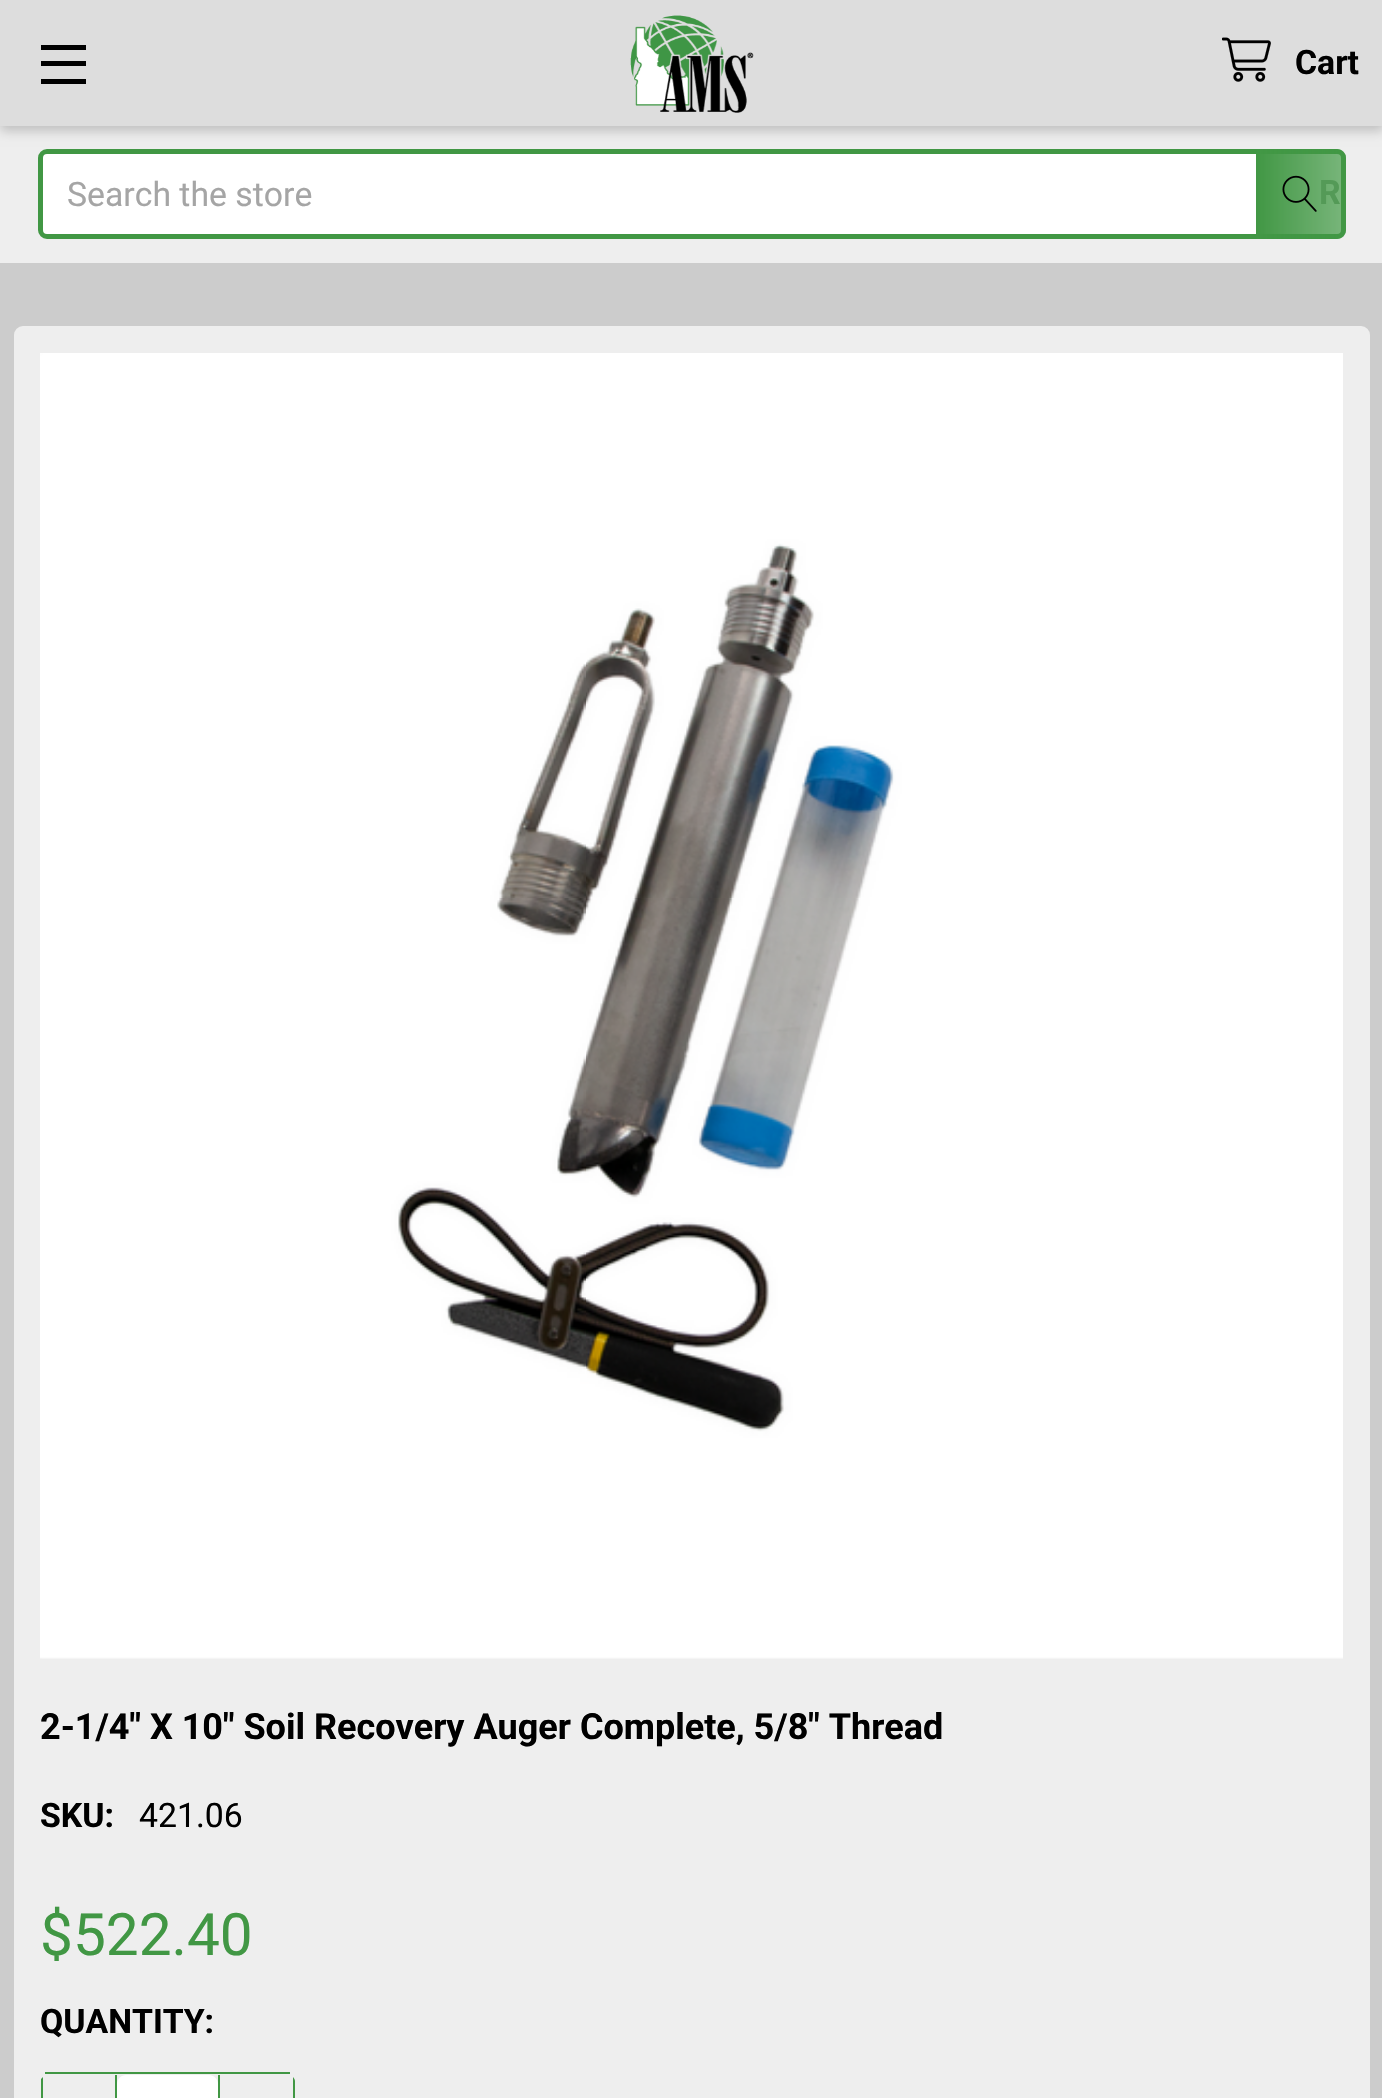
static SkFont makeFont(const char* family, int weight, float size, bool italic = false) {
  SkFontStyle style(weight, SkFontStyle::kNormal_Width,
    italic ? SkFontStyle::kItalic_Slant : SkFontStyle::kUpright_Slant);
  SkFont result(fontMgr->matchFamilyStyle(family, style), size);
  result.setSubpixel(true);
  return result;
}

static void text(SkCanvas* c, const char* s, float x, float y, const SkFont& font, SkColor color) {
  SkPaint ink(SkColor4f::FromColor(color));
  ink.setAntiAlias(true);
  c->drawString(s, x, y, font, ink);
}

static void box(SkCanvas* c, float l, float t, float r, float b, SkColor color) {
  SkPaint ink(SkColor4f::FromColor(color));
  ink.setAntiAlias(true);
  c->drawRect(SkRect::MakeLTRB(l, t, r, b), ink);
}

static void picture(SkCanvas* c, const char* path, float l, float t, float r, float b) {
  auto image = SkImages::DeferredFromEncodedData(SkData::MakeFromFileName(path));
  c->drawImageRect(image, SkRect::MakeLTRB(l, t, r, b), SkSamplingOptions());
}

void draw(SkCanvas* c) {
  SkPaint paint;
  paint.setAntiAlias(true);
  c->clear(0xffcccccc);
  box(c, 0, 126, 1382, 263, 0xffeeeeee);
  paint.setColor(0x33000000);
  paint.setMaskFilter(SkMaskFilter::MakeBlur(kNormal_SkBlurStyle, 5.5f));
  c->drawRect(SkRect::MakeLTRB(0, 5, 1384, 131), paint);
  paint.setMaskFilter(nullptr);
  box(c, 0, 0, 1382, 126, 0xffdddddd);
  box(c, 41, 61, 86, 66, 0xff000000);
  box(c, 41, 45, 86, 50, 0xff000000);
  box(c, 41, 79, 86, 84, 0xff000000);
  picture(c, "img_01.png", 630, 15, 754, 113);
  picture(c, "img_02.png", 1222, 37, 1271, 82);
  SkFont face1 = makeFont("Roboto", 700, 33.75f);
  text(c, "Cart", 1295, 74, face1, 0xff000000);
  paint.setColor(0xffffffff);
  c->drawRoundRect(SkRect::MakeLTRB(40.5f, 151.5f, 1343.5f, 236.5f), 6.5f, 6.5f, paint);
  paint.setStyle(SkPaint::kStroke_Style);
  paint.setStrokeWidth(5);
  paint.setColor(0xff419744);
  c->drawRoundRect(SkRect::MakeLTRB(40.5f, 151.5f, 1343.5f, 236.5f), 6.5f, 6.5f, paint);
  paint.setStyle(SkPaint::kFill_Style);
  {
    const SkColor colors[] = {0xff419744, 0xb3419744};
    const float stops[] = {0, 1};
    const SkPoint ends[] = {{1256, 194}, {1346, 194}};
    paint.setShader(SkGradientShader::MakeLinear(ends, colors, stops, 2, SkTileMode::kClamp));
    paint.setAlpha(255);
  }
  c->drawPath(SkPathBuilder().moveTo(1256, 149).lineTo(1337, 149).cubicTo(1342, 149, 1346, 153, 1346, 158).lineTo(1346, 230).cubicTo(1346, 235, 1342, 239, 1337, 239).lineTo(1256, 239).close().detach(), paint);
  picture(c, "img_03.png", 1282, 175, 1317, 212);
  SkFont face2 = makeFont("Roboto", 400, 33.75f);
  text(c, "Search the store", 67, 206, face2, 0xffa5a5a5);
  text(c, "R", 1319, 204, face1, 0xff549a57);
  paint.setShader(nullptr);
  paint.setColor(0xffeeeeee);
  c->drawRoundRect(SkRect::MakeLTRB(15, 327, 1369, 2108), 8, 8, paint);
  paint.setStyle(SkPaint::kStroke_Style);
  paint.setStrokeWidth(2);
  c->drawRoundRect(SkRect::MakeLTRB(15, 327, 1369, 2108), 8, 8, paint);
  picture(c, "img_04.png", 40, 353, 1343, 1659);
  SkFont face3 = makeFont("Roboto", 700, 36);
  text(c, "2-1/4\" X 10\" Soil Recovery Auger Complete, 5/8\" Thread", 40, 1739, face3, 0xff000000);
  text(c, "SKU:", 40, 1827, face1, 0xff000000);
  text(c, "421.06", 139, 1827, face2, 0xff000000);
  SkFont face4 = makeFont("Roboto", 400, 58.5f);
  text(c, "$522.40", 40, 1955, face4, 0xff419744);
  text(c, "QUANTITY:", 40, 2033, face1, 0xff000000);
  box(c, 45, 2072, 290, 2074, 0xff419744);
  box(c, 115, 2075, 117, 2098, 0xff419744);
  paint.setStyle(SkPaint::kFill_Style);
  paint.setColor(0xff419744);
  c->drawPath(SkPathBuilder().moveTo(41, 2079).lineTo(43, 2077).lineTo(43, 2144).lineTo(41, 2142).close().detach(), paint);
  paint.setColor(0xffffffff);
  c->drawPath(SkPathBuilder().moveTo(126, 2075).lineTo(209, 2075).cubicTo(214, 2075, 218, 2079, 218, 2084).lineTo(218, 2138).cubicTo(218, 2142, 215, 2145, 212, 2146).lineTo(123, 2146).cubicTo(120, 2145, 117, 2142, 117, 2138).lineTo(117, 2084).cubicTo(117, 2079, 121, 2075, 126, 2075).close().detach(), paint);
  paint.setColor(0xff419744);
  c->drawPath(SkPathBuilder().moveTo(293, 2077).cubicTo(294, 2078, 295, 2080, 295, 2081).lineTo(295, 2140).cubicTo(295, 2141, 294, 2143, 293, 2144).close().detach(), paint);
  box(c, 218, 2075, 220, 2098, 0xff419744);
}
